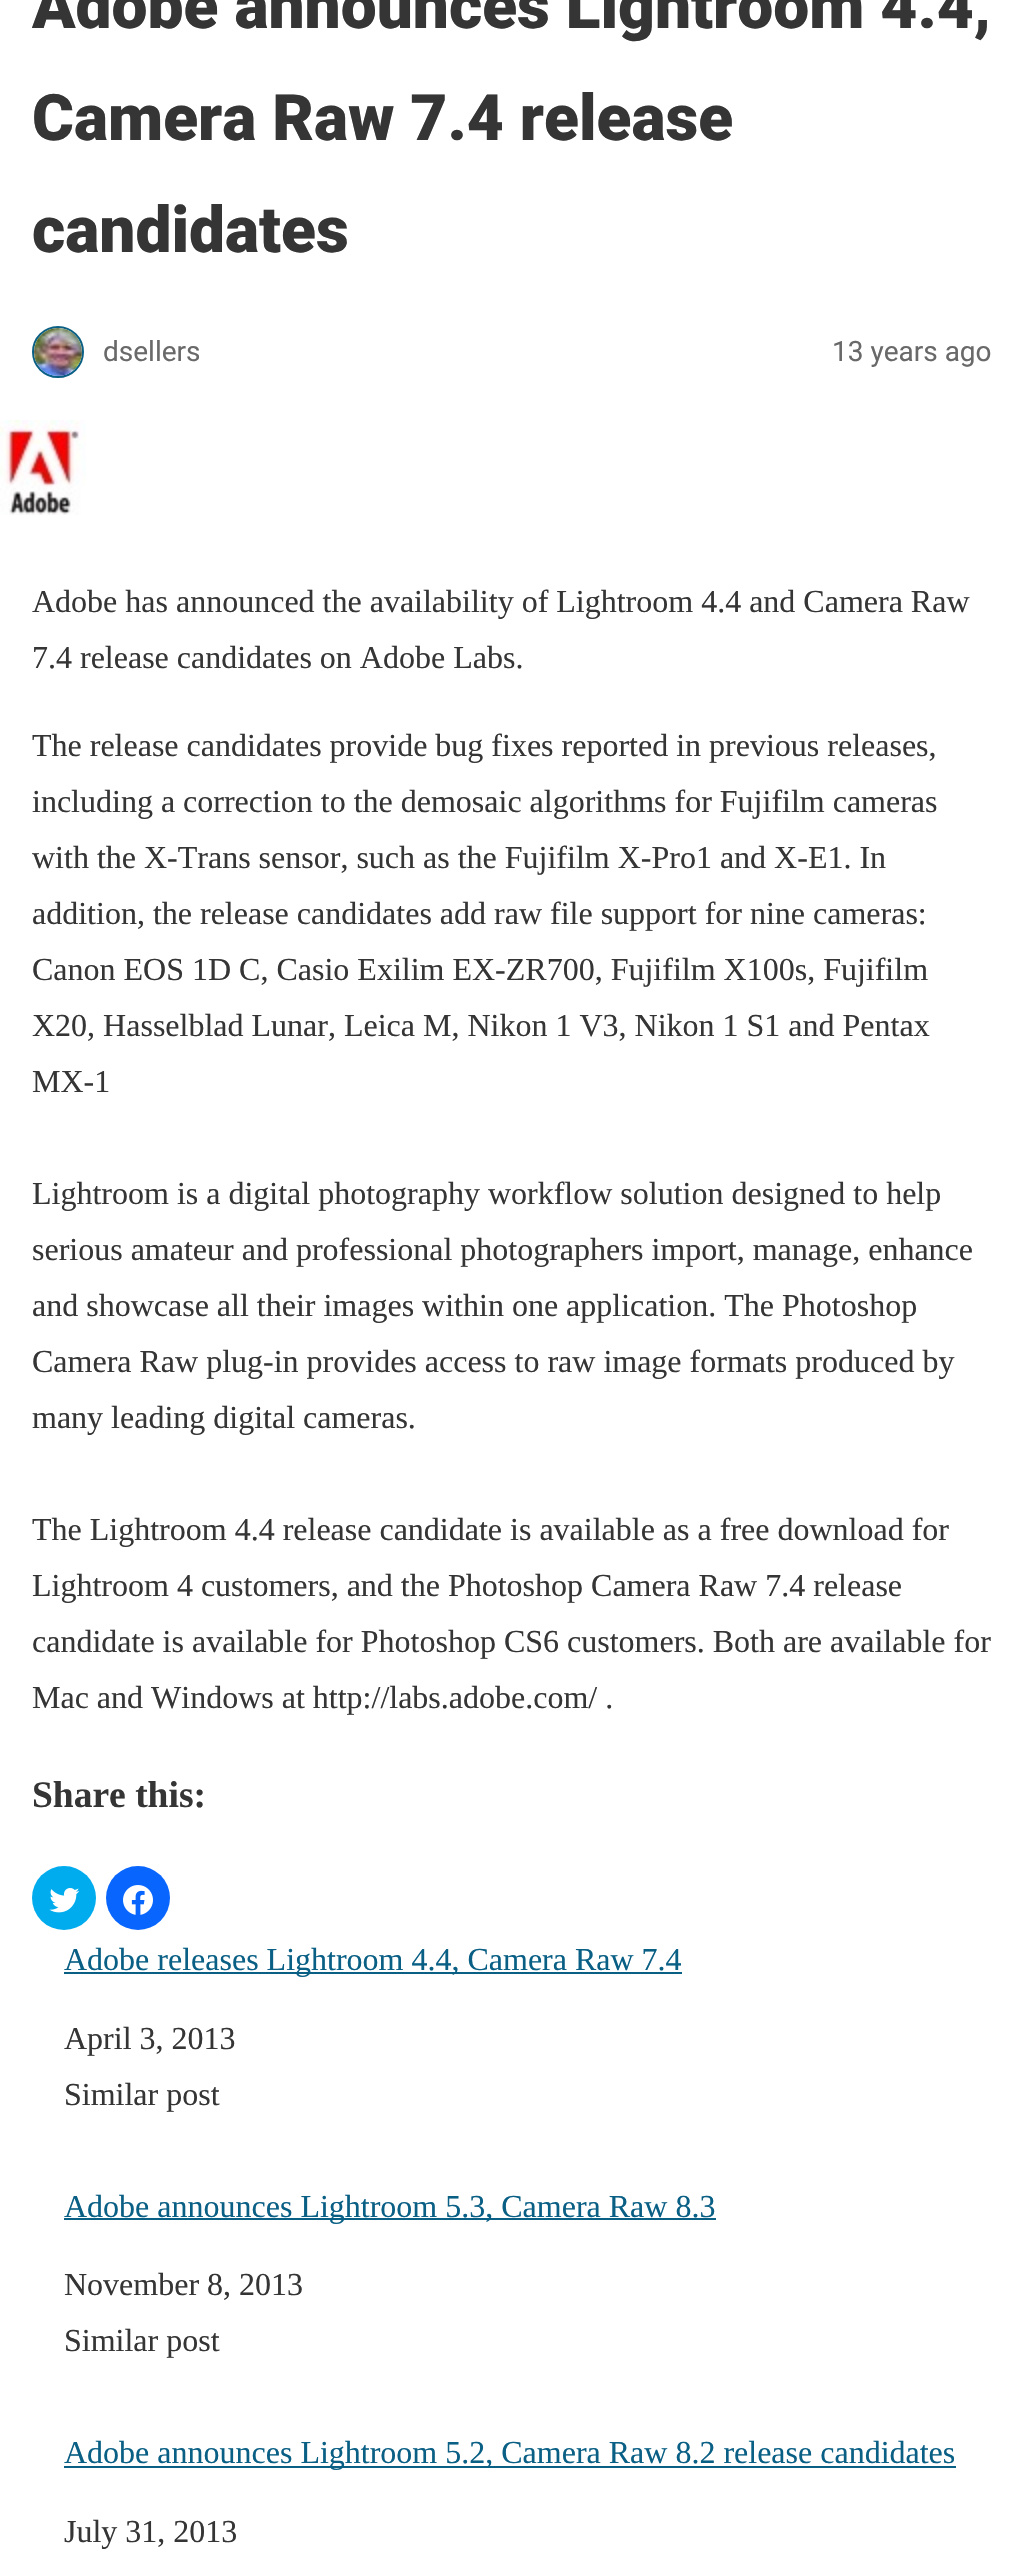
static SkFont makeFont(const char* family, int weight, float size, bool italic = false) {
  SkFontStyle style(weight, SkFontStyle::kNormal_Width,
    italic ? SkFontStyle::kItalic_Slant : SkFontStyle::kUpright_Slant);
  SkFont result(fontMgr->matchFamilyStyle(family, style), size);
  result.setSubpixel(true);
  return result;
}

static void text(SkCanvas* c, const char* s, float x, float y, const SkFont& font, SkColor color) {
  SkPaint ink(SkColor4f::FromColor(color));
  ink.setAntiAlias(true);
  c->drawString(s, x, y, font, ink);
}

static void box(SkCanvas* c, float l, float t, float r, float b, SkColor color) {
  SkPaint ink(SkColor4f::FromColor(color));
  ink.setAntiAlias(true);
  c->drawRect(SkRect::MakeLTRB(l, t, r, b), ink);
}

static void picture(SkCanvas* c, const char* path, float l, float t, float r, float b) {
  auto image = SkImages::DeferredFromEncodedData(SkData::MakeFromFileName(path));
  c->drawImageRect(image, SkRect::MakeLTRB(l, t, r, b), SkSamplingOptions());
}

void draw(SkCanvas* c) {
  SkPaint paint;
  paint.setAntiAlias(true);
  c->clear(0xffffffff);
  SkFont face1 = makeFont("Roboto", 900, 64);
  text(c, "Adobe announces Lightroom 4.4,", 32, 28, face1, 0xff353535);
  text(c, "Camera Raw 7.4 release", 32, 140, face1, 0xff353535);
  text(c, "candidates", 32, 252, face1, 0xff353535);
  paint.setStyle(SkPaint::kStroke_Style);
  paint.setStrokeWidth(2);
  paint.setColor(0xff0a5f85);
  c->drawCircle(58, 352, 25, paint);
  picture(c, "img_01.png", 34, 328, 82, 376);
  SkFont face2 = makeFont("Roboto", 400, 28);
  text(c, "dsellers", 103, 361, face2, 0xff696969);
  text(c, "13 years ago", 832, 361, face2, 0xff696969);
  picture(c, "img_02.png", 0, 420, 86, 515);
  SkFont face3 = makeFont("Liberation Serif", 400, 32);
  text(c, "Adobe has announced the availability of Lightroom 4.4 and Camera Raw", 32, 612, face3, 0xff353535);
  text(c, "7.4 release candidates on Adobe Labs.", 32, 668, face3, 0xff353535);
  text(c, "The release candidates provide bug fixes reported in previous releases,", 32, 756, face3, 0xff353535);
  text(c, "including a correction to the demosaic algorithms for Fujifilm cameras", 32, 812, face3, 0xff353535);
  text(c, "with the X-Trans sensor, such as the Fujifilm X-Pro1 and X-E1. In", 32, 868, face3, 0xff353535);
  text(c, "addition, the release candidates add raw file support for nine cameras:", 32, 924, face3, 0xff353535);
  text(c, "Canon EOS 1D C, Casio Exilim EX-ZR700, Fujifilm X100s, Fujifilm", 32, 980, face3, 0xff353535);
  text(c, "X20, Hasselblad Lunar, Leica M, Nikon 1 V3, Nikon 1 S1 and Pentax", 32, 1036, face3, 0xff353535);
  text(c, "MX-1", 32, 1092, face3, 0xff353535);
  text(c, "Lightroom is a digital photography workflow solution designed to help", 32, 1204, face3, 0xff353535);
  text(c, "serious amateur and professional photographers import, manage, enhance", 32, 1260, face3, 0xff353535);
  text(c, "and showcase all their images within one application. The Photoshop", 32, 1316, face3, 0xff353535);
  text(c, "Camera Raw plug-in provides access to raw image formats produced by", 32, 1372, face3, 0xff353535);
  text(c, "many leading digital cameras.", 32, 1428, face3, 0xff353535);
  text(c, "The Lightroom 4.4 release candidate is available as a free download for", 32, 1540, face3, 0xff353535);
  text(c, "Lightroom 4 customers, and the Photoshop Camera Raw 7.4 release", 32, 1596, face3, 0xff353535);
  text(c, "candidate is available for Photoshop CS6 customers. Both are available for", 32, 1652, face3, 0xff353535);
  text(c, "Mac and Windows at http://labs.adobe.com/ .", 32, 1708, face3, 0xff353535);
  SkFont face4 = makeFont("Liberation Serif", 700, 37.5f);
  text(c, "Share this:", 32, 1807, face4, 0xff353535);
  paint.setStyle(SkPaint::kFill_Style);
  paint.setColor(0xff00acee);
  c->drawCircle(64, 1898, 32, paint);
  picture(c, "img_03.png", 49, 1888, 80, 1913);
  paint.setColor(0xff0866ff);
  c->drawCircle(138, 1898, 32, paint);
  picture(c, "img_04.png", 123, 1885, 153, 1915);
  box(c, 64, 1972, 682, 1974, 0xff0a5f85);
  text(c, "Adobe releases Lightroom 4.4, Camera Raw 7.4", 64, 1970, face3, 0xff0a5f85);
  text(c, "April 3, 2013", 64, 2049, face3, 0xff353535);
  text(c, "Similar post", 64, 2105, face3, 0xff353535);
  box(c, 64, 2218, 716, 2220, 0xff0a5f85);
  text(c, "Adobe announces Lightroom 5.3, Camera Raw 8.3", 64, 2217, face3, 0xff0a5f85);
  text(c, "November 8, 2013", 64, 2295, face3, 0xff353535);
  text(c, "Similar post", 64, 2351, face3, 0xff353535);
  box(c, 64, 2466, 956, 2468, 0xff0a5f85);
  text(c, "Adobe announces Lightroom 5.2, Camera Raw 8.2 release candidates", 64, 2463, face3, 0xff0a5f85);
  text(c, "July 31, 2013", 64, 2542, face3, 0xff353535);
}
